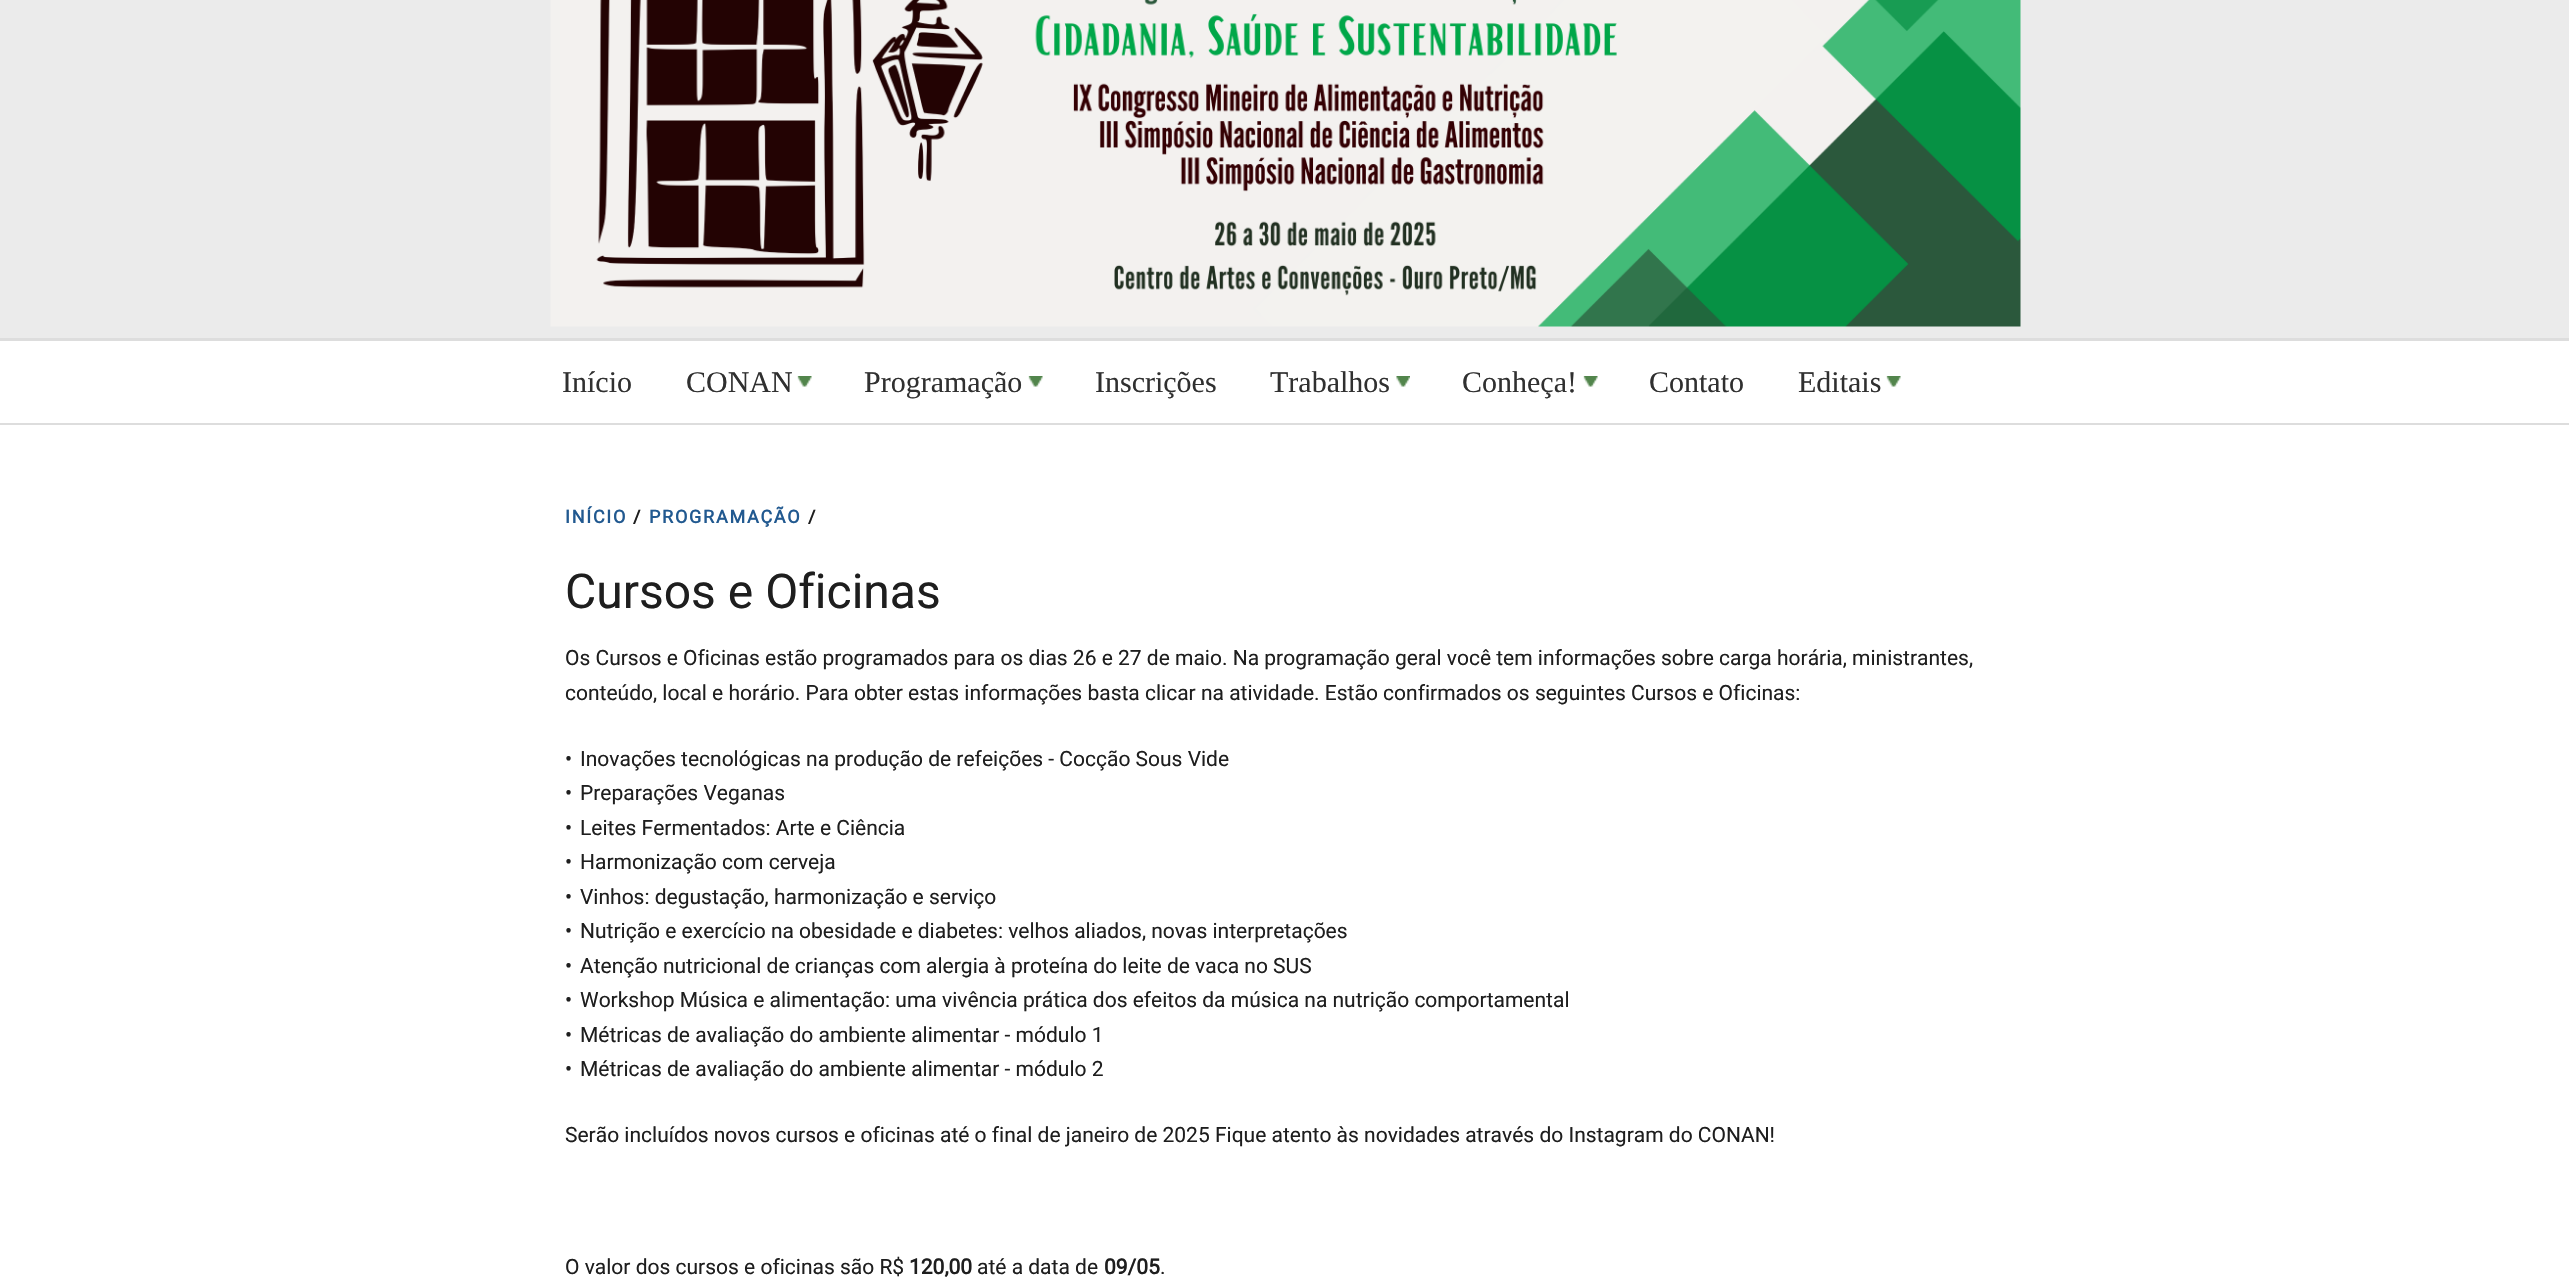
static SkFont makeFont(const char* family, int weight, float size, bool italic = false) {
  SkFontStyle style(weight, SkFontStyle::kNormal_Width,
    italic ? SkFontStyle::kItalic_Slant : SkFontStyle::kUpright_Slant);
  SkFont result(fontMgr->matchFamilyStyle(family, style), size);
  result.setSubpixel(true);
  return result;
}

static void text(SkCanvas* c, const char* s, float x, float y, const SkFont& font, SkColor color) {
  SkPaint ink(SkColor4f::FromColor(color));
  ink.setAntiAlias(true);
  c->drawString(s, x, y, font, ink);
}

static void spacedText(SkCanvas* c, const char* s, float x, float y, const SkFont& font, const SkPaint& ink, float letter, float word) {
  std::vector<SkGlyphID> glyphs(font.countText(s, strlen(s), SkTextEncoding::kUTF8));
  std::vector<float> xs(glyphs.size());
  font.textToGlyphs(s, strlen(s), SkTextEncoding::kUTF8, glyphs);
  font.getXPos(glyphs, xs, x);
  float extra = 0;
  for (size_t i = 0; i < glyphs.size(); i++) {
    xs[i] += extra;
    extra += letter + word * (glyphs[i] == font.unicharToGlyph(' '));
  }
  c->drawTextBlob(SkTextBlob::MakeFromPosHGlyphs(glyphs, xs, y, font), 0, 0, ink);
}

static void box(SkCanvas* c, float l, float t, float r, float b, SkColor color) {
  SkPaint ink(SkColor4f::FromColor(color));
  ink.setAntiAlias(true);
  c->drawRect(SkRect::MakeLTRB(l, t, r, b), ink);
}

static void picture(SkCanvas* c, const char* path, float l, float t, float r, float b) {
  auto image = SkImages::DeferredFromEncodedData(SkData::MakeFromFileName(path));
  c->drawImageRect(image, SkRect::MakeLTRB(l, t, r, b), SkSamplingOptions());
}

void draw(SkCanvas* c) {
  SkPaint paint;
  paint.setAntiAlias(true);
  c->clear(0xffffffff);
  box(c, 0, 0, 2569, 338, 0xffebebeb);
  box(c, 0, 338, 2569, 341, 0xffdddddd);
  picture(c, "img_01.png", 550, 0, 2021, 327);
  box(c, 0, 423, 2569, 425, 0xffdddddd);
  SkFont face1 = makeFont("Liberation Serif", 400, 30);
  text(c, "Início", 562, 392, face1, 0xff303030);
  text(c, "CONAN", 686, 392, face1, 0xff303030);
  picture(c, "img_02.png", 797, 376, 812, 387);
  text(c, "Programação", 864, 392, face1, 0xff303030);
  picture(c, "img_02.png", 1028, 376, 1043, 387);
  text(c, "Inscrições", 1095, 392, face1, 0xff303030);
  text(c, "Trabalhos", 1270, 392, face1, 0xff303030);
  picture(c, "img_03.png", 1396, 376, 1410, 387);
  text(c, "Conheça!", 1462, 392, face1, 0xff303030);
  picture(c, "img_02.png", 1583, 376, 1598, 387);
  text(c, "Contato", 1649, 392, face1, 0xff303030);
  text(c, "Editais", 1798, 392, face1, 0xff303030);
  picture(c, "img_04.png", 1886, 376, 1901, 387);
  SkFont face2 = makeFont("Roboto", 700, 18);
  paint.setColor(0xff215990);
  spacedText(c, "INÍCIO", 565, 523, face2, paint, 1.75f, 0);
  paint.setColor(0xff1e1e1e);
  spacedText(c, "/", 633, 523, face2, paint, 1.75f, 0);
  paint.setColor(0xff215990);
  spacedText(c, "PROGRAMAÇÃO", 649, 523, face2, paint, 1.75f, 0);
  paint.setColor(0xff1e1e1e);
  spacedText(c, "/", 808, 523, face2, paint, 1.75f, 0);
  SkFont face3 = makeFont("Roboto", 400, 48);
  text(c, "Cursos e Oficinas", 565, 608, face3, 0xff1e1e1e);
  SkFont face4 = makeFont("Roboto", 400, 21);
  text(c, "Os Cursos e Oficinas estão programados para os dias 26 e 27 de maio. Na programação geral você tem informações sobre carga horária, ministrantes,", 565, 665, face4, 0xff1e1e1e);
  text(c, "conteúdo, local e horário. Para obter estas informações basta clicar na atividade. Estão confirmados os seguintes Cursos e Oficinas:", 565, 700, face4, 0xff1e1e1e);
  text(c, "•", 565, 766, face4, 0xff1e1e1e);
  text(c, "Inovações tecnológicas na produção de refeições - Cocção Sous Vide", 580, 766, face4, 0xff1e1e1e);
  text(c, "•", 565, 800, face4, 0xff1e1e1e);
  text(c, "Preparações Veganas", 580, 800, face4, 0xff1e1e1e);
  text(c, "•", 565, 835, face4, 0xff1e1e1e);
  text(c, "Leites Fermentados: Arte e Ciência", 580, 835, face4, 0xff1e1e1e);
  text(c, "•", 565, 869, face4, 0xff1e1e1e);
  text(c, "Harmonização com cerveja", 580, 869, face4, 0xff1e1e1e);
  text(c, "•", 565, 904, face4, 0xff1e1e1e);
  text(c, "Vinhos: degustação, harmonização e serviço", 580, 904, face4, 0xff1e1e1e);
  text(c, "•", 565, 938, face4, 0xff1e1e1e);
  text(c, "Nutrição e exercício na obesidade e diabetes: velhos aliados, novas interpretações", 580, 938, face4, 0xff1e1e1e);
  text(c, "•", 565, 973, face4, 0xff1e1e1e);
  text(c, "Atenção nutricional de crianças com alergia à proteína do leite de vaca no SUS", 580, 973, face4, 0xff1e1e1e);
  text(c, "•", 565, 1007, face4, 0xff1e1e1e);
  text(c, "Workshop Música e alimentação: uma vivência prática dos efeitos da música na nutrição comportamental", 580, 1007, face4, 0xff1e1e1e);
  text(c, "•", 565, 1042, face4, 0xff1e1e1e);
  text(c, "Métricas de avaliação do ambiente alimentar - módulo 1", 580, 1042, face4, 0xff1e1e1e);
  text(c, "•", 565, 1076, face4, 0xff1e1e1e);
  text(c, "Métricas de avaliação do ambiente alimentar - módulo 2", 580, 1076, face4, 0xff1e1e1e);
  text(c, "Serão incluídos novos cursos e oficinas até o final de janeiro de 2025 Fique atento às novidades através do Instagram do CONAN!", 565, 1142, face4, 0xff1e1e1e);
  text(c, "O valor dos cursos e oficinas são R$", 565, 1274, face4, 0xff1e1e1e);
  SkFont face5 = makeFont("Roboto", 700, 21);
  text(c, "120,00", 909, 1274, face5, 0xff1e1e1e);
  text(c, "até a data de", 977, 1274, face4, 0xff1e1e1e);
  text(c, "09/05", 1104, 1274, face5, 0xff1e1e1e);
  text(c, ".", 1160, 1274, face4, 0xff1e1e1e);
}
